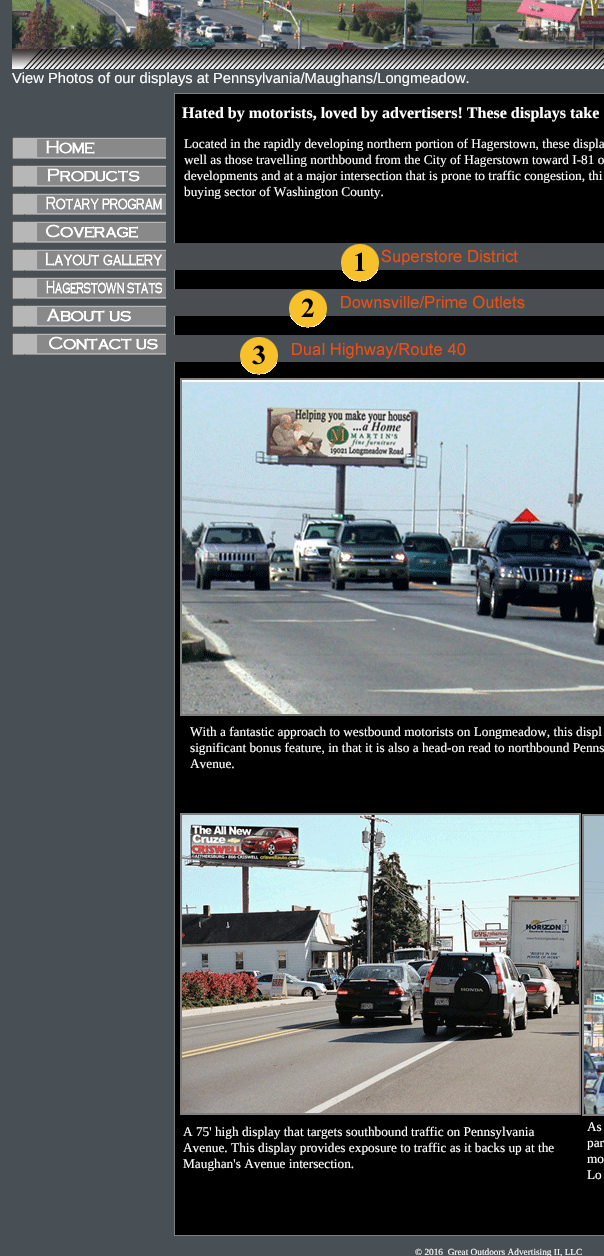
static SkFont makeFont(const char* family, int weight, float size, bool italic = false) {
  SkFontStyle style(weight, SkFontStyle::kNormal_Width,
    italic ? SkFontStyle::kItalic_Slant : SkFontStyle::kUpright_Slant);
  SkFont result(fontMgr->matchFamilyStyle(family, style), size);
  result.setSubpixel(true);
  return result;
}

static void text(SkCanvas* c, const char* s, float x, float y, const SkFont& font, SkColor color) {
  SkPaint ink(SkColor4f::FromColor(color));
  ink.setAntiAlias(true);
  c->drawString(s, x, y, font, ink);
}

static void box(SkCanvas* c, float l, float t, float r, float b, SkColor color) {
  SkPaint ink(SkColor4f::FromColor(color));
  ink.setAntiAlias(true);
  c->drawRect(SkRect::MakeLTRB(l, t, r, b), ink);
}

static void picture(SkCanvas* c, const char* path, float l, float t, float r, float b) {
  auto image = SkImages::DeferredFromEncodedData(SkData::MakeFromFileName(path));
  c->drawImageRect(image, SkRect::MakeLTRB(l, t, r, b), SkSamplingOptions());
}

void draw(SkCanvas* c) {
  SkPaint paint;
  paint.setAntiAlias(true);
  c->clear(0xff484f55);
  picture(c, "img_01.png", 12, 0, 604, 49);
  picture(c, "img_02.png", 12, 49, 604, 69);
  SkFont face1 = makeFont("Liberation Sans", 400, 14.7f);
  text(c, "View Photos of our displays at Pennsylvania/Maughans/Longmeadow.", 12, 83, face1, 0xffffffff);
  paint.setColor(0xff000000);
  c->drawRect(SkRect::MakeLTRB(174.5f, 93.5f, 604.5f, 1235.5f), paint);
  paint.setStyle(SkPaint::kStroke_Style);
  paint.setStrokeWidth(1);
  paint.setColor(0xff808080);
  c->drawRect(SkRect::MakeLTRB(174.5f, 93.5f, 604.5f, 1235.5f), paint);
  SkFont face2 = makeFont("Liberation Serif", 700, 16);
  text(c, "Hated by motorists, loved by advertisers! These displays take", 182, 118, face2, 0xffffffff);
  picture(c, "img_03.png", 12, 137, 166, 159);
  SkFont face3 = makeFont("Liberation Serif", 400, 13.3f);
  text(c, "Located in the rapidly developing northern portion of Hagerstown, these displa", 184, 148, face3, 0xffffffff);
  text(c, "well as those travelling northbound from the City of Hagerstown toward I-81 o", 184, 164, face3, 0xffffffff);
  text(c, "developments and at a major intersection that is prone to traffic congestion, thi", 184, 180, face3, 0xffffffff);
  text(c, "buying sector of Washington County.", 184, 196, face3, 0xffffffff);
  picture(c, "img_04.png", 12, 165, 166, 187);
  picture(c, "img_05.png", 12, 193, 166, 215);
  picture(c, "img_06.png", 12, 221, 166, 243);
  box(c, 167, 243, 604, 270, 0xff4a4d52);
  picture(c, "img_07.png", 12, 249, 166, 271);
  picture(c, "img_08.png", 341, 244, 518, 282);
  picture(c, "img_09.png", 12, 277, 166, 299);
  box(c, 169, 289, 604, 316, 0xff4a4d52);
  picture(c, "img_10.png", 12, 305, 166, 327);
  picture(c, "img_11.png", 289, 290, 525, 328);
  picture(c, "img_12.png", 12, 333, 166, 355);
  box(c, 169, 335, 604, 362, 0xff4a4d52);
  picture(c, "img_13.png", 240, 337, 466, 375);
  paint.setStrokeWidth(2);
  c->drawRect(SkRect::MakeLTRB(181, 379, 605, 715), paint);
  picture(c, "img_14.png", 182, 380, 604, 714);
  text(c, "With a fantastic approach to westbound motorists on Longmeadow, this displ", 190, 736, face3, 0xffffffff);
  text(c, "significant bonus feature, in that it is also a head-on read to northbound Penns", 190, 752, face3, 0xffffffff);
  text(c, "Avenue.", 190, 768, face3, 0xffffffff);
  c->drawRect(SkRect::MakeLTRB(181, 814, 580, 1114), paint);
  picture(c, "img_15.png", 182, 815, 579, 1113);
  c->drawRect(SkRect::MakeLTRB(583, 815, 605, 1115), paint);
  picture(c, "img_16.png", 584, 816, 604, 1114);
  text(c, "A 75' high display that targets southbound traffic on Pennsylvania", 183, 1136, face3, 0xffffffff);
  text(c, "Avenue. This display provides exposure to traffic as it backs up at the", 183, 1152, face3, 0xffffffff);
  text(c, "Maughan's Avenue intersection.", 183, 1168, face3, 0xffffffff);
  text(c, "As", 587, 1131, face3, 0xffffffff);
  text(c, "par", 587, 1147, face3, 0xffffffff);
  text(c, "mo", 587, 1163, face3, 0xffffffff);
  text(c, "Lo", 587, 1179, face3, 0xffffffff);
  SkFont face4 = makeFont("Liberation Serif", 400, 9.3f);
  text(c, "© 2016  Great Outdoors Advertising II, LLC", 415, 1255, face4, 0xffffffff);
}
